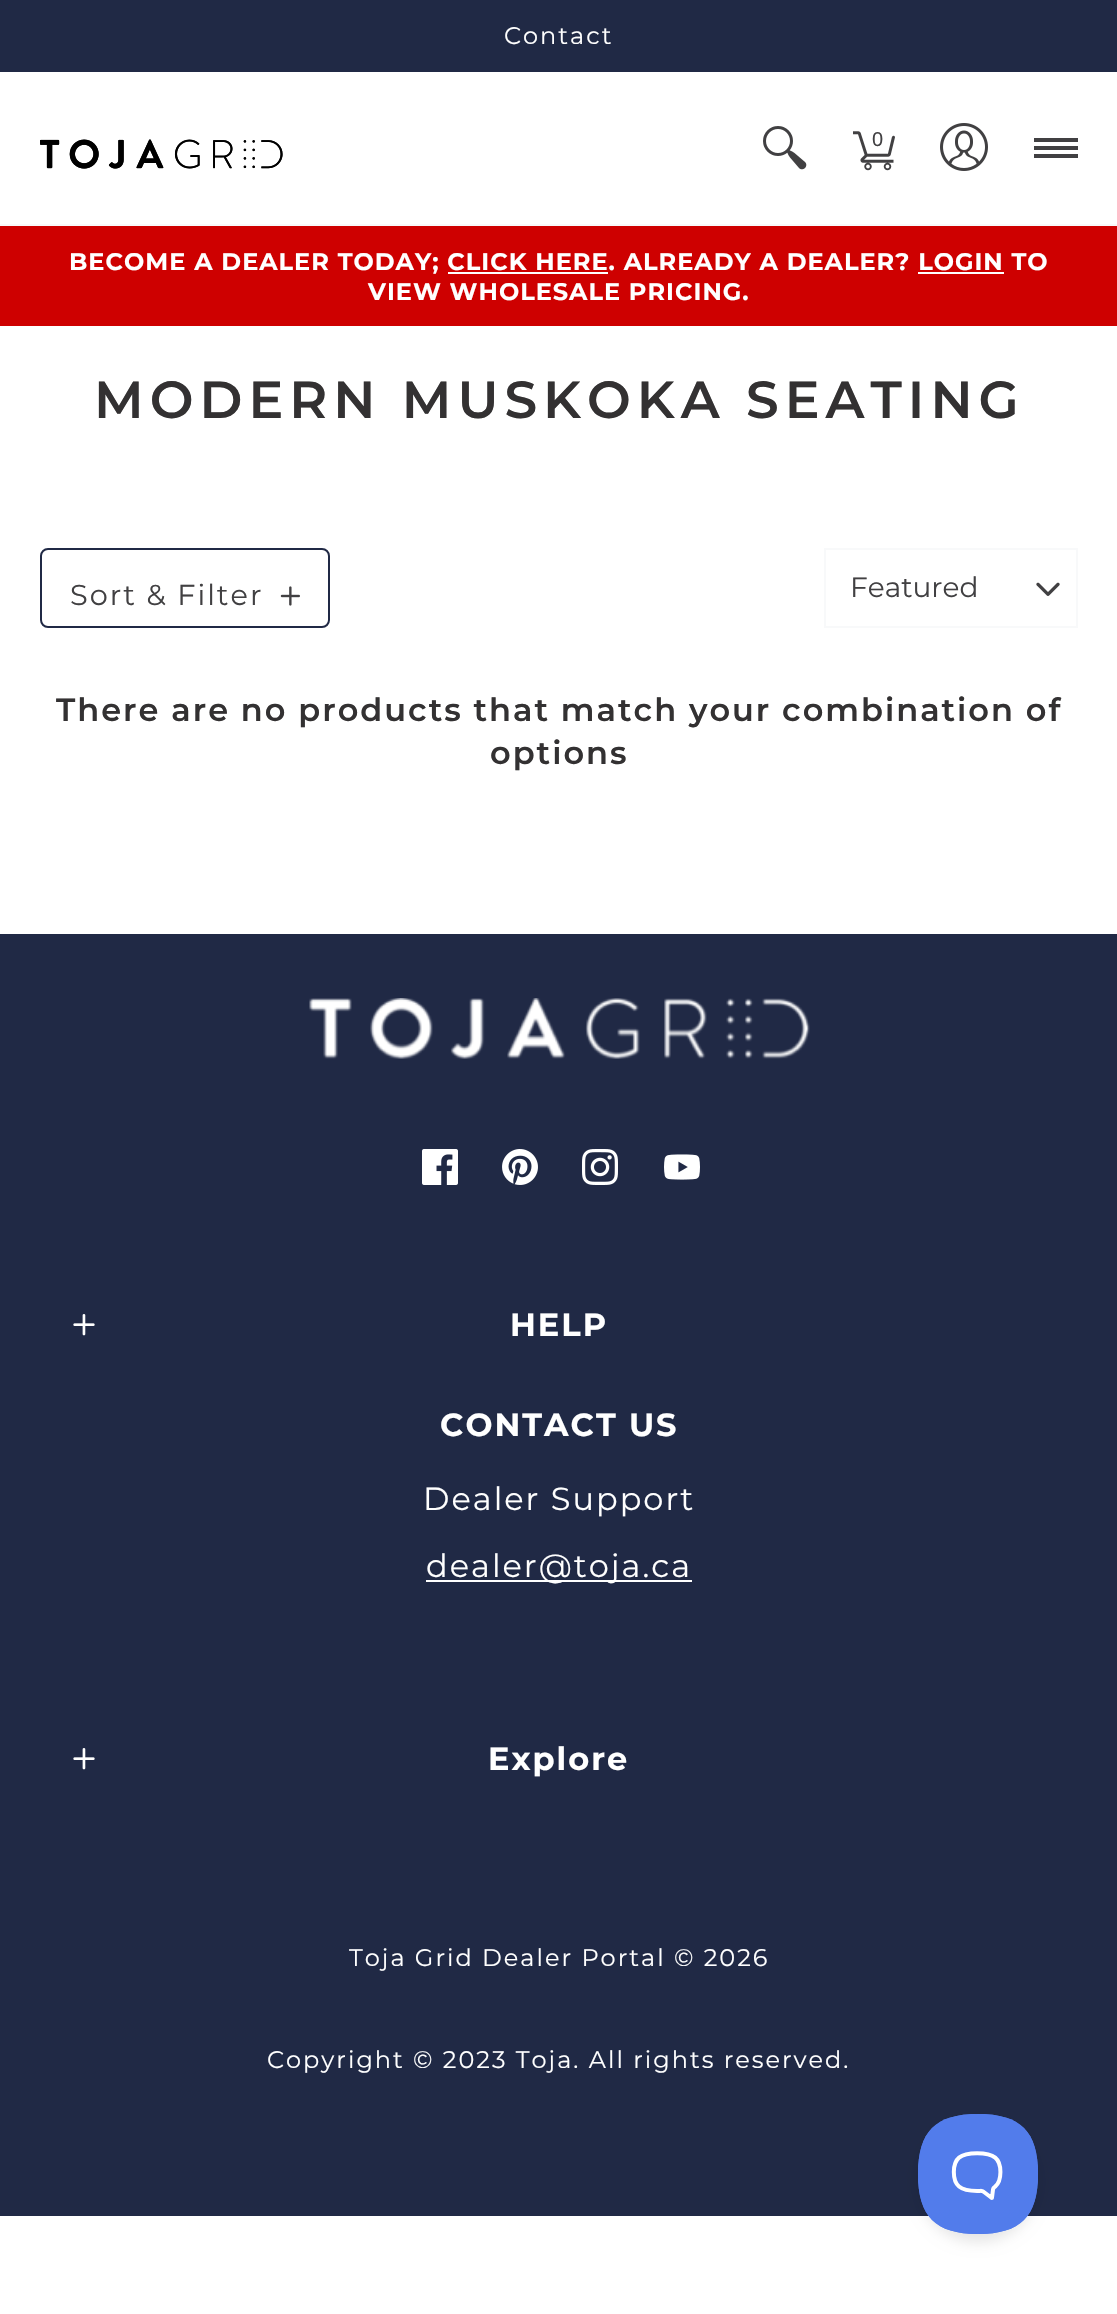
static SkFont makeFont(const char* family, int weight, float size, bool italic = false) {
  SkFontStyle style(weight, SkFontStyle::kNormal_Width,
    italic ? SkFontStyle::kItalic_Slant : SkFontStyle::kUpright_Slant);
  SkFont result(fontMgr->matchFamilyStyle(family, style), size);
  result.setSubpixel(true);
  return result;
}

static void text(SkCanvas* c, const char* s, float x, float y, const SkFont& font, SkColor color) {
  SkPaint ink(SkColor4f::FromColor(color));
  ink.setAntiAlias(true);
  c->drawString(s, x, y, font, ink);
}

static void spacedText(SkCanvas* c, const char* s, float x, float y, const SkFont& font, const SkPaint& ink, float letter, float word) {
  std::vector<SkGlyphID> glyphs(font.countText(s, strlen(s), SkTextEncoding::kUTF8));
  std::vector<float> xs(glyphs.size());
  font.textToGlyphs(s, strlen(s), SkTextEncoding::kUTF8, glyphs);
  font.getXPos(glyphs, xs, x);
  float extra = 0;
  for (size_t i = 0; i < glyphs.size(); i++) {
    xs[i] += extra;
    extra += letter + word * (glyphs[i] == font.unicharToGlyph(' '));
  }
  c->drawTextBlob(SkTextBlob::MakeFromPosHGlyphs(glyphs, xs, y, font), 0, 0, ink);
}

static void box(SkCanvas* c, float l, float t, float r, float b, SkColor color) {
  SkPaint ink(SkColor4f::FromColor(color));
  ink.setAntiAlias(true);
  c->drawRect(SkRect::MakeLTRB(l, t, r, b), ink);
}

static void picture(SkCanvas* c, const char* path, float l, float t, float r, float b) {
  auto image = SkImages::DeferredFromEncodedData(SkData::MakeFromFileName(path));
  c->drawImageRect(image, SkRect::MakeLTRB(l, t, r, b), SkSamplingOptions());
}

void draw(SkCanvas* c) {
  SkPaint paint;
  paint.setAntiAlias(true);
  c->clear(0xffffffff);
  box(c, 0, 0, 1117, 72, 0xff202945);
  SkFont face1 = makeFont("Montserrat", 400, 24);
  paint.setColor(0xffffffff);
  spacedText(c, "Contact", 504, 44, face1, paint, 2, 0);
  box(c, 0, 224, 1117, 226, 0xfff8f9fa);
  picture(c, "img_01.png", 40, 139, 283, 169);
  picture(c, "img_02.png", 763, 126, 807, 170);
  picture(c, "img_03.png", 853, 131, 895, 171);
  SkFont face2 = makeFont("Liberation Sans", 400, 20);
  paint.setColor(0xff414042);
  spacedText(c, "0", 872, 146, face2, paint, 1, 0);
  picture(c, "img_04.png", 940, 123, 988, 171);
  box(c, 1034, 138, 1078, 142, 0xff414042);
  box(c, 1034, 154, 1078, 158, 0xff414042);
  box(c, 1034, 146, 1078, 150, 0xff414042);
  box(c, 0, 226, 1117, 326, 0xffce0000);
  SkFont face3 = makeFont("Montserrat", 700, 24);
  paint.setColor(0xffffffff);
  spacedText(c, "BECOME A DEALER TODAY; CLICK HERE. ALREADY A DEALER? LOGIN TO", 69, 270, face3, paint, 1, 0);
  box(c, 448, 272, 608, 274, 0xffffffff);
  box(c, 918, 272, 1004, 274, 0xffffffff);
  spacedText(c, "VIEW WHOLESALE PRICING.", 368, 300, face3, paint, 1, 0);
  SkFont face4 = makeFont("Montserrat", 600, 52);
  paint.setColor(0xff333132);
  spacedText(c, "MODERN MUSKOKA SEATING", 94, 418, face4, paint, 6, 0);
  paint.setStyle(SkPaint::kStroke_Style);
  paint.setStrokeWidth(2);
  paint.setColor(0xff202945);
  c->drawRoundRect(SkRect::MakeLTRB(41, 549, 329, 627), 7, 7, paint);
  SkFont face5 = makeFont("Montserrat", 400, 28.75f);
  paint.setStyle(SkPaint::kFill_Style);
  paint.setColor(0xff414042);
  spacedText(c, "Sort & Filter", 70, 605, face5, paint, 2, 0);
  picture(c, "img_05.png", 280, 586, 300, 606);
  picture(c, "img_06.png", 1036, 582, 1060, 596);
  paint.setStyle(SkPaint::kStroke_Style);
  paint.setColor(0xfff8f9fa);
  c->drawRect(SkRect::MakeLTRB(825, 549, 1077, 627), paint);
  SkFont face6 = makeFont("Montserrat", 400, 28);
  text(c, "Featured", 850, 597, face6, 0xff414042);
  SkFont face7 = makeFont("Montserrat", 600, 32);
  paint.setStyle(SkPaint::kFill_Style);
  paint.setColor(0xff333132);
  spacedText(c, "There are no products that match your combination of", 56, 721, face7, paint, 2, 0);
  spacedText(c, "options", 490, 764, face7, paint, 2, 0);
  box(c, 0, 934, 1117, 2216, 0xff202945);
  picture(c, "img_07.png", 309, 998, 810, 1059);
  picture(c, "img_08.png", 422, 1149, 458, 1185);
  picture(c, "img_09.png", 502, 1149, 538, 1185);
  picture(c, "img_10.png", 582, 1149, 618, 1185);
  picture(c, "img_11.png", 664, 1154, 700, 1180);
  picture(c, "img_12.png", 73, 1314, 95, 1336);
  SkFont face8 = makeFont("Montserrat", 700, 32);
  paint.setColor(0xffffffff);
  spacedText(c, "HELP", 510, 1336, face8, paint, 2, 0);
  spacedText(c, "CONTACT US", 440, 1436, face8, paint, 2, 0);
  SkFont face9 = makeFont("Montserrat", 400, 32);
  spacedText(c, "Dealer Support", 423, 1510, face9, paint, 2, 0);
  box(c, 426, 1580, 692, 1582, 0xffffffff);
  spacedText(c, "dealer@toja.ca", 426, 1577, face9, paint, 2, 0);
  picture(c, "img_12.png", 73, 1748, 95, 1770);
  spacedText(c, "Explore", 488, 1770, face8, paint, 2, 0);
  spacedText(c, "Toja Grid Dealer Portal © 2026", 349, 1966, face1, paint, 2, 0);
  spacedText(c, "Copyright © 2023 Toja. All rights reserved.", 267, 2068, face1, paint, 2, 0);
  paint.setColor(0x1a000000);
  paint.setMaskFilter(SkMaskFilter::MakeBlur(kNormal_SkBlurStyle, 7));
  c->drawRoundRect(SkRect::MakeLTRB(918, 2122, 1038, 2242), 60, 60, paint);
  paint.setMaskFilter(nullptr);
  picture(c, "img_13.png", 918, 2114, 1038, 2234);
}
